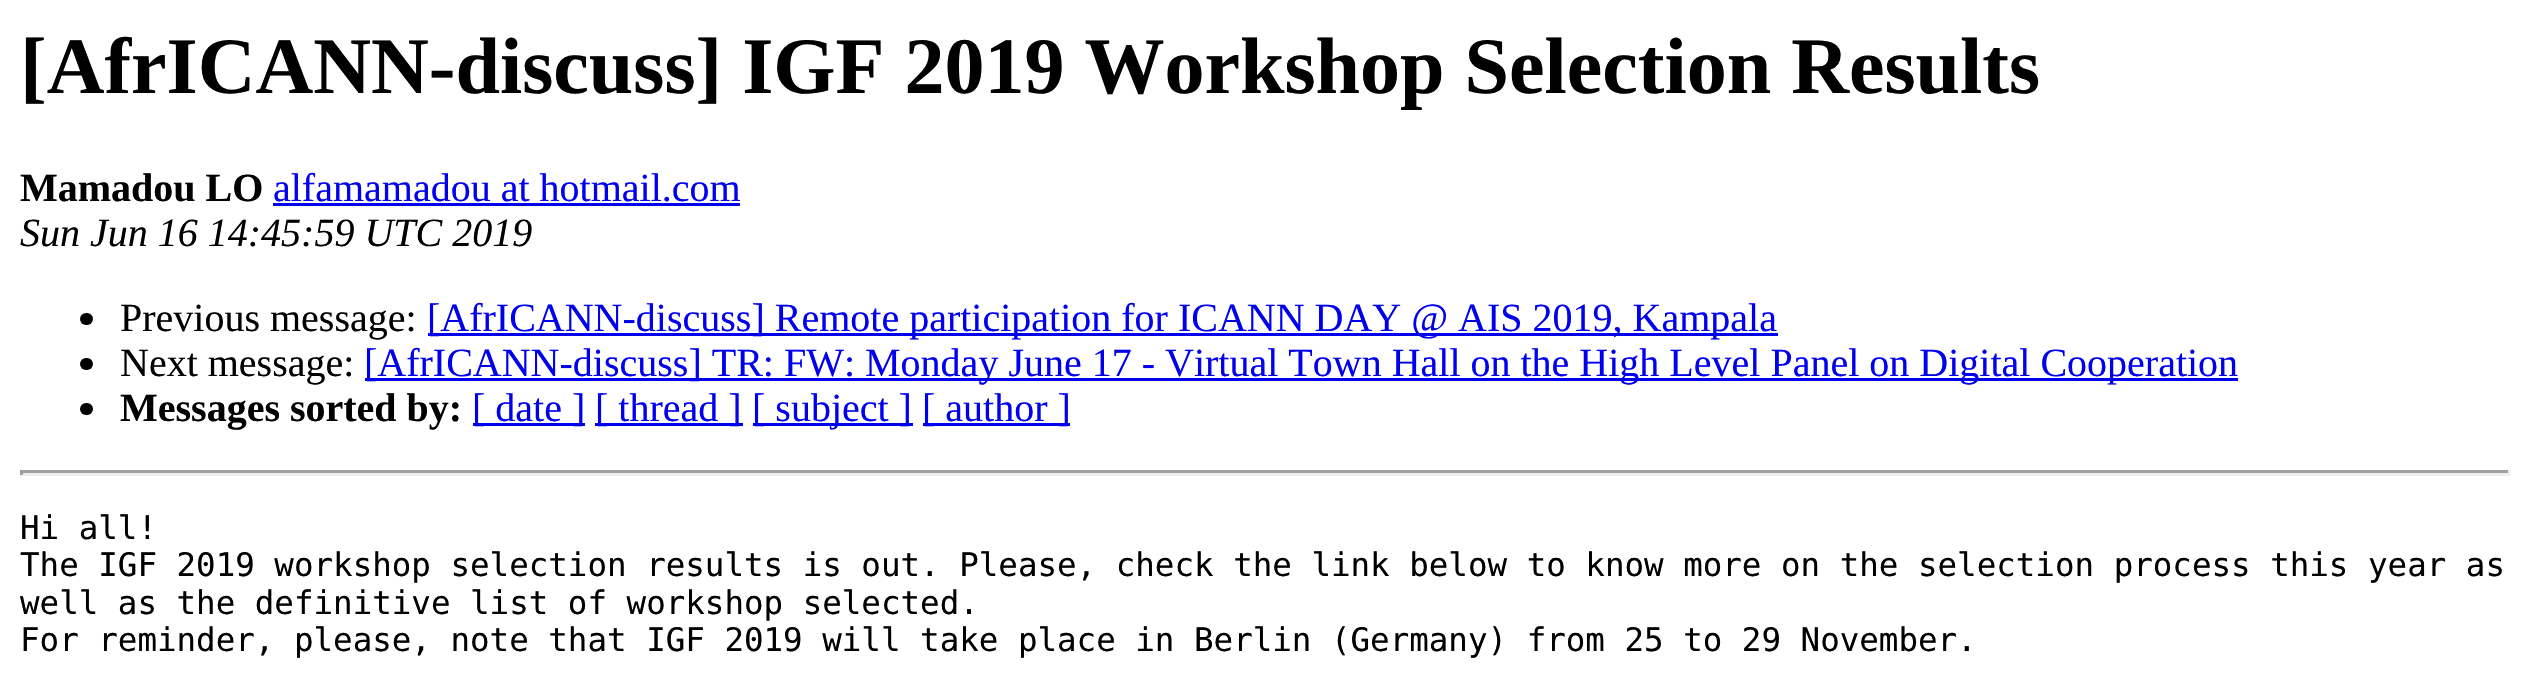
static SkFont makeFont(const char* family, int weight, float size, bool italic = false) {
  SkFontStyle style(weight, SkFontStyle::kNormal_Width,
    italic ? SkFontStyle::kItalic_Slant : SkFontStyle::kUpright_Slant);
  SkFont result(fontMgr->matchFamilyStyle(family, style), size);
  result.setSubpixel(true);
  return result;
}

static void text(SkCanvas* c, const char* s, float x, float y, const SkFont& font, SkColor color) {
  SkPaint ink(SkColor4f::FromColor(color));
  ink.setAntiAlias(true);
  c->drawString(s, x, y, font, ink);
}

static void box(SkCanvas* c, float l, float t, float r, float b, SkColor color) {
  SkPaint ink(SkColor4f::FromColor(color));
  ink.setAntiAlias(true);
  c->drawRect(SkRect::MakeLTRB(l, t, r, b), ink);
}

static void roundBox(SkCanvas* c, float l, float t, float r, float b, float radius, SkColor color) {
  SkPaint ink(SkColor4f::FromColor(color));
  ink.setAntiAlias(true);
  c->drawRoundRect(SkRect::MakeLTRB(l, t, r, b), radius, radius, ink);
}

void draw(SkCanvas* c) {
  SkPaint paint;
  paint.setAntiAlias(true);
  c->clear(0xffffffff);
  SkFont face1 = makeFont("Liberation Serif", 700, 80);
  text(c, "[AfrICANN-discuss] IGF 2019 Workshop Selection Results", 20, 93, face1, 0xff000000);
  SkFont face2 = makeFont("Liberation Serif", 700, 40);
  text(c, "Mamadou LO", 20, 201, face2, 0xff000000);
  SkFont face3 = makeFont("Liberation Serif", 400, 40);
  text(c, "alfamamadou at hotmail.com", 273, 201, face3, 0xff0000ee);
  box(c, 273, 203, 740, 206, 0xff0000ee);
  SkFont face4 = makeFont("Liberation Serif", 400, 40, true);
  text(c, "Sun Jun 16 14:45:59 UTC 2019", 20, 246, face4, 0xff000000);
  roundBox(c, 80, 313, 93, 325, 6, 0xff000000);
  text(c, "Previous message:", 120, 331, face3, 0xff000000);
  box(c, 428, 333, 1778, 336, 0xff0000ee);
  text(c, "[AfrICANN-discuss] Remote participation for ICANN DAY @ AIS 2019, Kampala", 427, 331, face3, 0xff0000ee);
  roundBox(c, 80, 358, 93, 370, 6, 0xff000000);
  text(c, "Next message:", 120, 376, face3, 0xff000000);
  box(c, 365, 378, 2238, 381, 0xff0000ee);
  text(c, "[AfrICANN-discuss] TR: FW: Monday June 17 - Virtual Town Hall on the High Level Panel on Digital Cooperation", 364, 376, face3, 0xff0000ee);
  roundBox(c, 80, 403, 93, 415, 6, 0xff000000);
  text(c, "Messages sorted by:", 120, 421, face2, 0xff000000);
  box(c, 473, 423, 585, 426, 0xff0000ee);
  text(c, "[ date ]", 472, 421, face3, 0xff0000ee);
  box(c, 595, 423, 743, 426, 0xff0000ee);
  text(c, "[ thread ]", 595, 421, face3, 0xff0000ee);
  box(c, 753, 423, 913, 426, 0xff0000ee);
  text(c, "[ subject ]", 752, 421, face3, 0xff0000ee);
  box(c, 923, 423, 1070, 426, 0xff0000ee);
  text(c, "[ author ]", 922, 421, face3, 0xff0000ee);
  box(c, 20, 470, 2510, 473, 0xff9f9f9f);
  box(c, 2508, 470, 2511, 475, 0xffeeeeee);
  box(c, 20, 473, 2510, 476, 0xffeeeeee);
  box(c, 20, 470, 23, 475, 0xff9f9f9f);
  SkFont face5 = makeFont("DejaVu Sans Mono", 400, 32.5f);
  text(c, "Hi all!", 20, 539, face5, 0xff000000);
  text(c, "The IGF 2019 workshop selection results is out. Please, check the link below to know more on the selection process this year as", 20, 576, face5, 0xff000000);
  text(c, "well as the definitive list of workshop selected.", 20, 614, face5, 0xff000000);
  text(c, "For reminder, please, note that IGF 2019 will take place in Berlin (Germany) from 25 to 29 November.", 20, 651, face5, 0xff000000);
}
